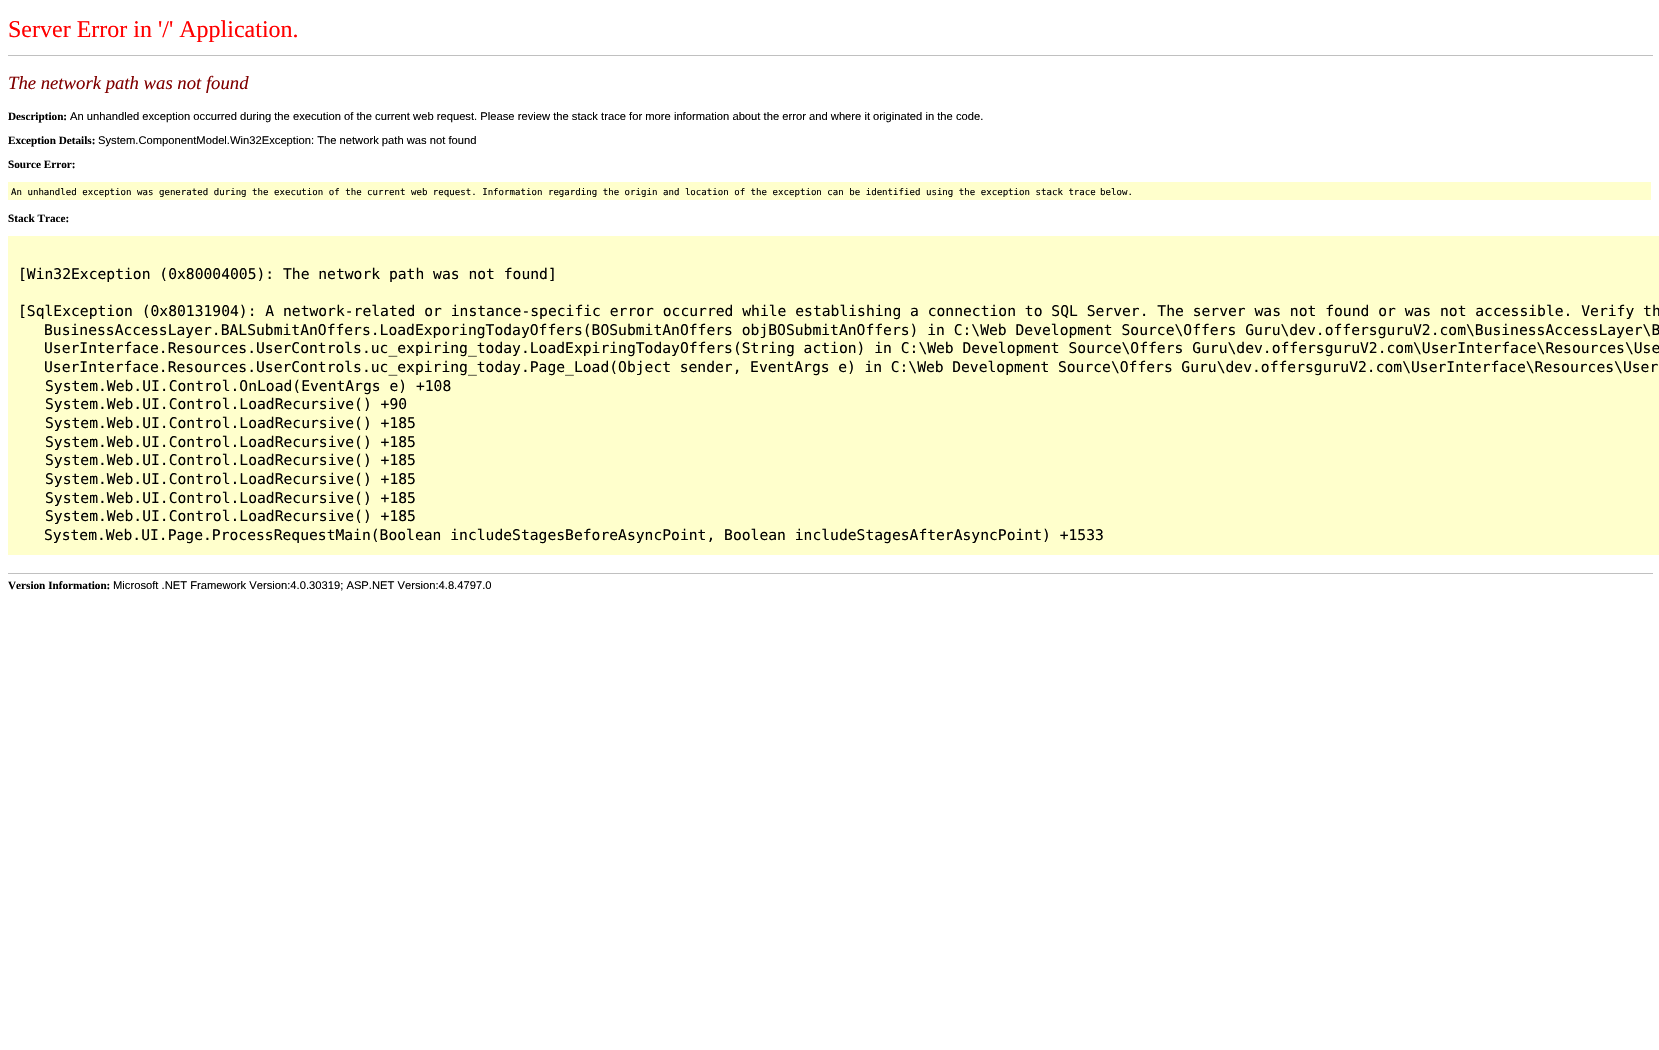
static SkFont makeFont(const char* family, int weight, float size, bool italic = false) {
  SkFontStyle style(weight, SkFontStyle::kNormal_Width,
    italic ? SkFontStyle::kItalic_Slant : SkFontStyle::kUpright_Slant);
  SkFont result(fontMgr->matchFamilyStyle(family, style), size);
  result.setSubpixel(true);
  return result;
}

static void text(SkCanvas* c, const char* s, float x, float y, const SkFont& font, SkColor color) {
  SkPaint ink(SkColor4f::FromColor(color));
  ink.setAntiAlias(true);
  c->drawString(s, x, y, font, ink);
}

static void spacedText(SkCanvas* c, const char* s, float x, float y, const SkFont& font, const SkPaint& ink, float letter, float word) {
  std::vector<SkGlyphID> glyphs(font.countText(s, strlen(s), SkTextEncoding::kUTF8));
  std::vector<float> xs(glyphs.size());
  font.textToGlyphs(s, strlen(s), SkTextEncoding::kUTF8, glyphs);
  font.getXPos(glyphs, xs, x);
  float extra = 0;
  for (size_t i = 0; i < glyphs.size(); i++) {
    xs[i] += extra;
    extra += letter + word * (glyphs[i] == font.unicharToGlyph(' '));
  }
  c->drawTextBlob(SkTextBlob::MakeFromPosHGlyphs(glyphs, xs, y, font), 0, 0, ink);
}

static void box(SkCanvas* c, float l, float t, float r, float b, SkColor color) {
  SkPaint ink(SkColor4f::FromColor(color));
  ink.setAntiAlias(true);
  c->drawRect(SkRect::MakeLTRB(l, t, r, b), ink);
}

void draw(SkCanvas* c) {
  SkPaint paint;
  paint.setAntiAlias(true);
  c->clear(0xffffffff);
  SkFont face1 = makeFont("Liberation Serif", 400, 24);
  text(c, "Server Error in '/' Application.", 8, 37, face1, 0xffff0000);
  box(c, 8, 55, 1653, 56, 0xffc0c0c0);
  SkFont face2 = makeFont("Liberation Serif", 400, 18.7f, true);
  text(c, "The network path was not found", 8, 89, face2, 0xff800000);
  SkFont face3 = makeFont("Liberation Serif", 700, 11.2f);
  text(c, "Description:", 8, 120, face3, 0xff000000);
  SkFont face4 = makeFont("Liberation Sans", 400, 11.2f);
  text(c, "An unhandled exception occurred during the execution of the current web request. Please review the stack trace for more information about the error and where it originated in the code.", 70, 120, face4, 0xff000000);
  text(c, "Exception Details:", 8, 144, face3, 0xff000000);
  text(c, "System.ComponentModel.Win32Exception: The network path was not found", 98, 144, face4, 0xff000000);
  text(c, "Source Error:", 8, 168, face3, 0xff000000);
  box(c, 8, 182, 1651, 200, 0xffffffcc);
  SkFont face5 = makeFont("DejaVu Sans Mono", 400, 9.1f);
  text(c, "An unhandled exception was generated during the execution of the current web request. Information regarding the origin and location of the exception can be identified using the exception stack trace", 11, 195, face5, 0xff000000);
  text(c, "below.", 1100, 195, face5, 0xff000000);
  text(c, "Stack Trace:", 8, 222, face3, 0xff000000);
  box(c, 8, 236, 1659, 555, 0xffffffcc);
  SkFont face6 = makeFont("DejaVu Sans Mono", 400, 14.67f);
  text(c, "[Win32Exception (0x80004005): The network path was not found]", 18, 279, face6, 0xff000000);
  text(c, "[SqlException (0x80131904): A network-related or instance-specific error occurred while establishing a connection to SQL Server. The server was not found or was not accessible. Verify th", 18, 316, face6, 0xff000000);
  text(c, "BusinessAccessLayer.BALSubmitAnOffers.LoadExporingTodayOffers(BOSubmitAnOffers objBOSubmitAnOffers) in C:\\Web Development Source\\Offers Guru\\dev.offersguruV2.com\\BusinessAccessLayer\\B", 44, 335, face6, 0xff000000);
  text(c, "UserInterface.Resources.UserControls.uc_expiring_today.LoadExpiringTodayOffers(String action) in C:\\Web Development Source\\Offers Guru\\dev.offersguruV2.com\\UserInterface\\Resources\\Use", 44, 353, face6, 0xff000000);
  paint.setColor(0xff000000);
  spacedText(c, "UserInterface.Resources.UserControls.uc_expiring_today.Page_Load(Object sender, EventArgs e) in C:\\Web Development Source\\Offers Guru\\dev.offersguruV2.com\\UserInterface\\Resources\\User", 44, 372, face6, paint, 0, -0.25f);
  text(c, "System.Web.UI.Control.OnLoad(EventArgs e) +108", 45, 391, face6, 0xff000000);
  text(c, "System.Web.UI.Control.LoadRecursive() +90", 45, 409, face6, 0xff000000);
  text(c, "System.Web.UI.Control.LoadRecursive() +185", 45, 428, face6, 0xff000000);
  text(c, "System.Web.UI.Control.LoadRecursive() +185", 45, 447, face6, 0xff000000);
  text(c, "System.Web.UI.Control.LoadRecursive() +185", 45, 465, face6, 0xff000000);
  text(c, "System.Web.UI.Control.LoadRecursive() +185", 45, 484, face6, 0xff000000);
  text(c, "System.Web.UI.Control.LoadRecursive() +185", 45, 503, face6, 0xff000000);
  text(c, "System.Web.UI.Control.LoadRecursive() +185", 45, 521, face6, 0xff000000);
  text(c, "System.Web.UI.Page.ProcessRequestMain(Boolean includeStagesBeforeAsyncPoint, Boolean includeStagesAfterAsyncPoint) +1533", 44, 540, face6, 0xff000000);
  box(c, 8, 573, 1653, 574, 0xffc0c0c0);
  text(c, "Version Information:", 8, 589, face3, 0xff000000);
  text(c, "Microsoft .NET Framework Version:4.0.30319; ASP.NET Version:4.8.4797.0", 113, 589, face4, 0xff000000);
}
